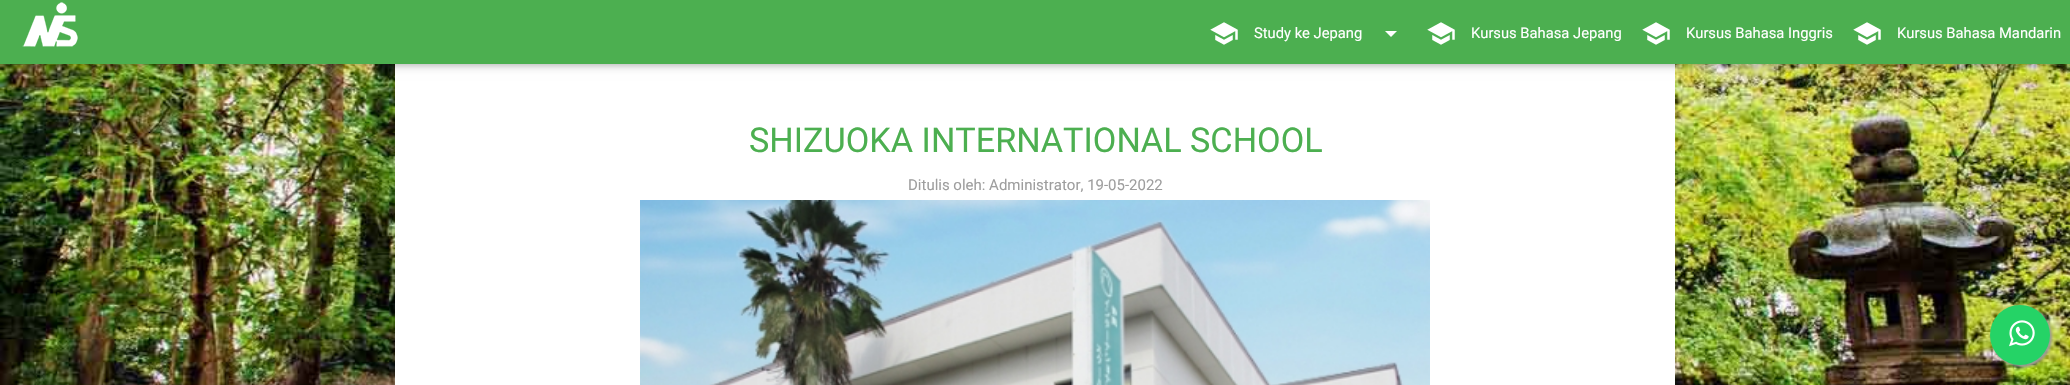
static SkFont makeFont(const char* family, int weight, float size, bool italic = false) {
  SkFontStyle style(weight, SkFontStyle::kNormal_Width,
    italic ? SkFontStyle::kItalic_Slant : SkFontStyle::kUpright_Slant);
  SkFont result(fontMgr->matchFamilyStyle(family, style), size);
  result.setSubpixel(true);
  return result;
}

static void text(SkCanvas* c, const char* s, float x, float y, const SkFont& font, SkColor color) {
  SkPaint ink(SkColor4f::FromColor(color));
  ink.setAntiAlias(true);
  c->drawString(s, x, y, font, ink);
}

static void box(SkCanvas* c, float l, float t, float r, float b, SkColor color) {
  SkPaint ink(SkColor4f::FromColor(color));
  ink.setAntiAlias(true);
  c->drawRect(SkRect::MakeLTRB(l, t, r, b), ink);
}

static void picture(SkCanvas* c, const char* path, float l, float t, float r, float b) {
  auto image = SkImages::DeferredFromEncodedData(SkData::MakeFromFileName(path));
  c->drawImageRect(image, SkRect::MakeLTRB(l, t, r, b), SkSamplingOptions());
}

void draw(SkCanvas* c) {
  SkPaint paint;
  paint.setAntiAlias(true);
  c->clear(0xffffffff);
  picture(c, "img_03.png", 0, 64, 2070, 385);
  box(c, 395, 64, 1675, 385, 0xffffffff);
  paint.setColor(0x1f000000);
  paint.setMaskFilter(SkMaskFilter::MakeBlur(kNormal_SkBlurStyle, 5));
  c->drawRect(SkRect::MakeLTRB(0, 2, 2070, 66), paint);
  paint.setMaskFilter(nullptr);
  paint.setColor(0x29000000);
  paint.setMaskFilter(SkMaskFilter::MakeBlur(kNormal_SkBlurStyle, 2.5f));
  c->drawRect(SkRect::MakeLTRB(0, 2, 2070, 66), paint);
  paint.setMaskFilter(nullptr);
  box(c, 0, 0, 2070, 64, 0xff4caf50);
  picture(c, "img_01.png", 22, 2, 78, 47);
  picture(c, "img_02.png", 1210, 22, 1238, 45);
  SkFont face1 = makeFont("Roboto", 400, 14.75f);
  text(c, "Study ke Jepang", 1254, 38, face1, 0xffffffff);
  paint.setColor(0xffffffff);
  c->drawPath(SkPathBuilder().moveTo(1385, 31).lineTo(1391, 37).lineTo(1397, 31).close().detach(), paint);
  picture(c, "img_02.png", 1427, 22, 1455, 45);
  text(c, "Kursus Bahasa Jepang", 1471, 38, face1, 0xffffffff);
  picture(c, "img_02.png", 1642, 22, 1670, 45);
  text(c, "Kursus Bahasa Inggris", 1686, 38, face1, 0xffffffff);
  picture(c, "img_02.png", 1853, 22, 1881, 45);
  text(c, "Kursus Bahasa Mandarin", 1897, 38, face1, 0xffffffff);
  SkFont face2 = makeFont("Roboto", 400, 34.25f);
  text(c, "SHIZUOKA INTERNATIONAL SCHOOL", 749, 152, face2, 0xff4caf50);
  SkFont face3 = makeFont("Roboto", 400, 15);
  text(c, "Ditulis oleh: Administrator, 19-05-2022", 908, 190, face3, 0xff9e9e9e);
  picture(c, "img_04.png", 640, 200, 1430, 385);
  paint.setColor(0xff999999);
  paint.setMaskFilter(SkMaskFilter::MakeBlur(kNormal_SkBlurStyle, 1.5f));
  c->drawRoundRect(SkRect::MakeLTRB(1992, 307, 2052, 367), 30, 30, paint);
  paint.setMaskFilter(nullptr);
  paint.setColor(0xff25d366);
  c->drawCircle(2020, 335, 30, paint);
  picture(c, "img_05.png", 2009, 320, 2035, 347);
}
